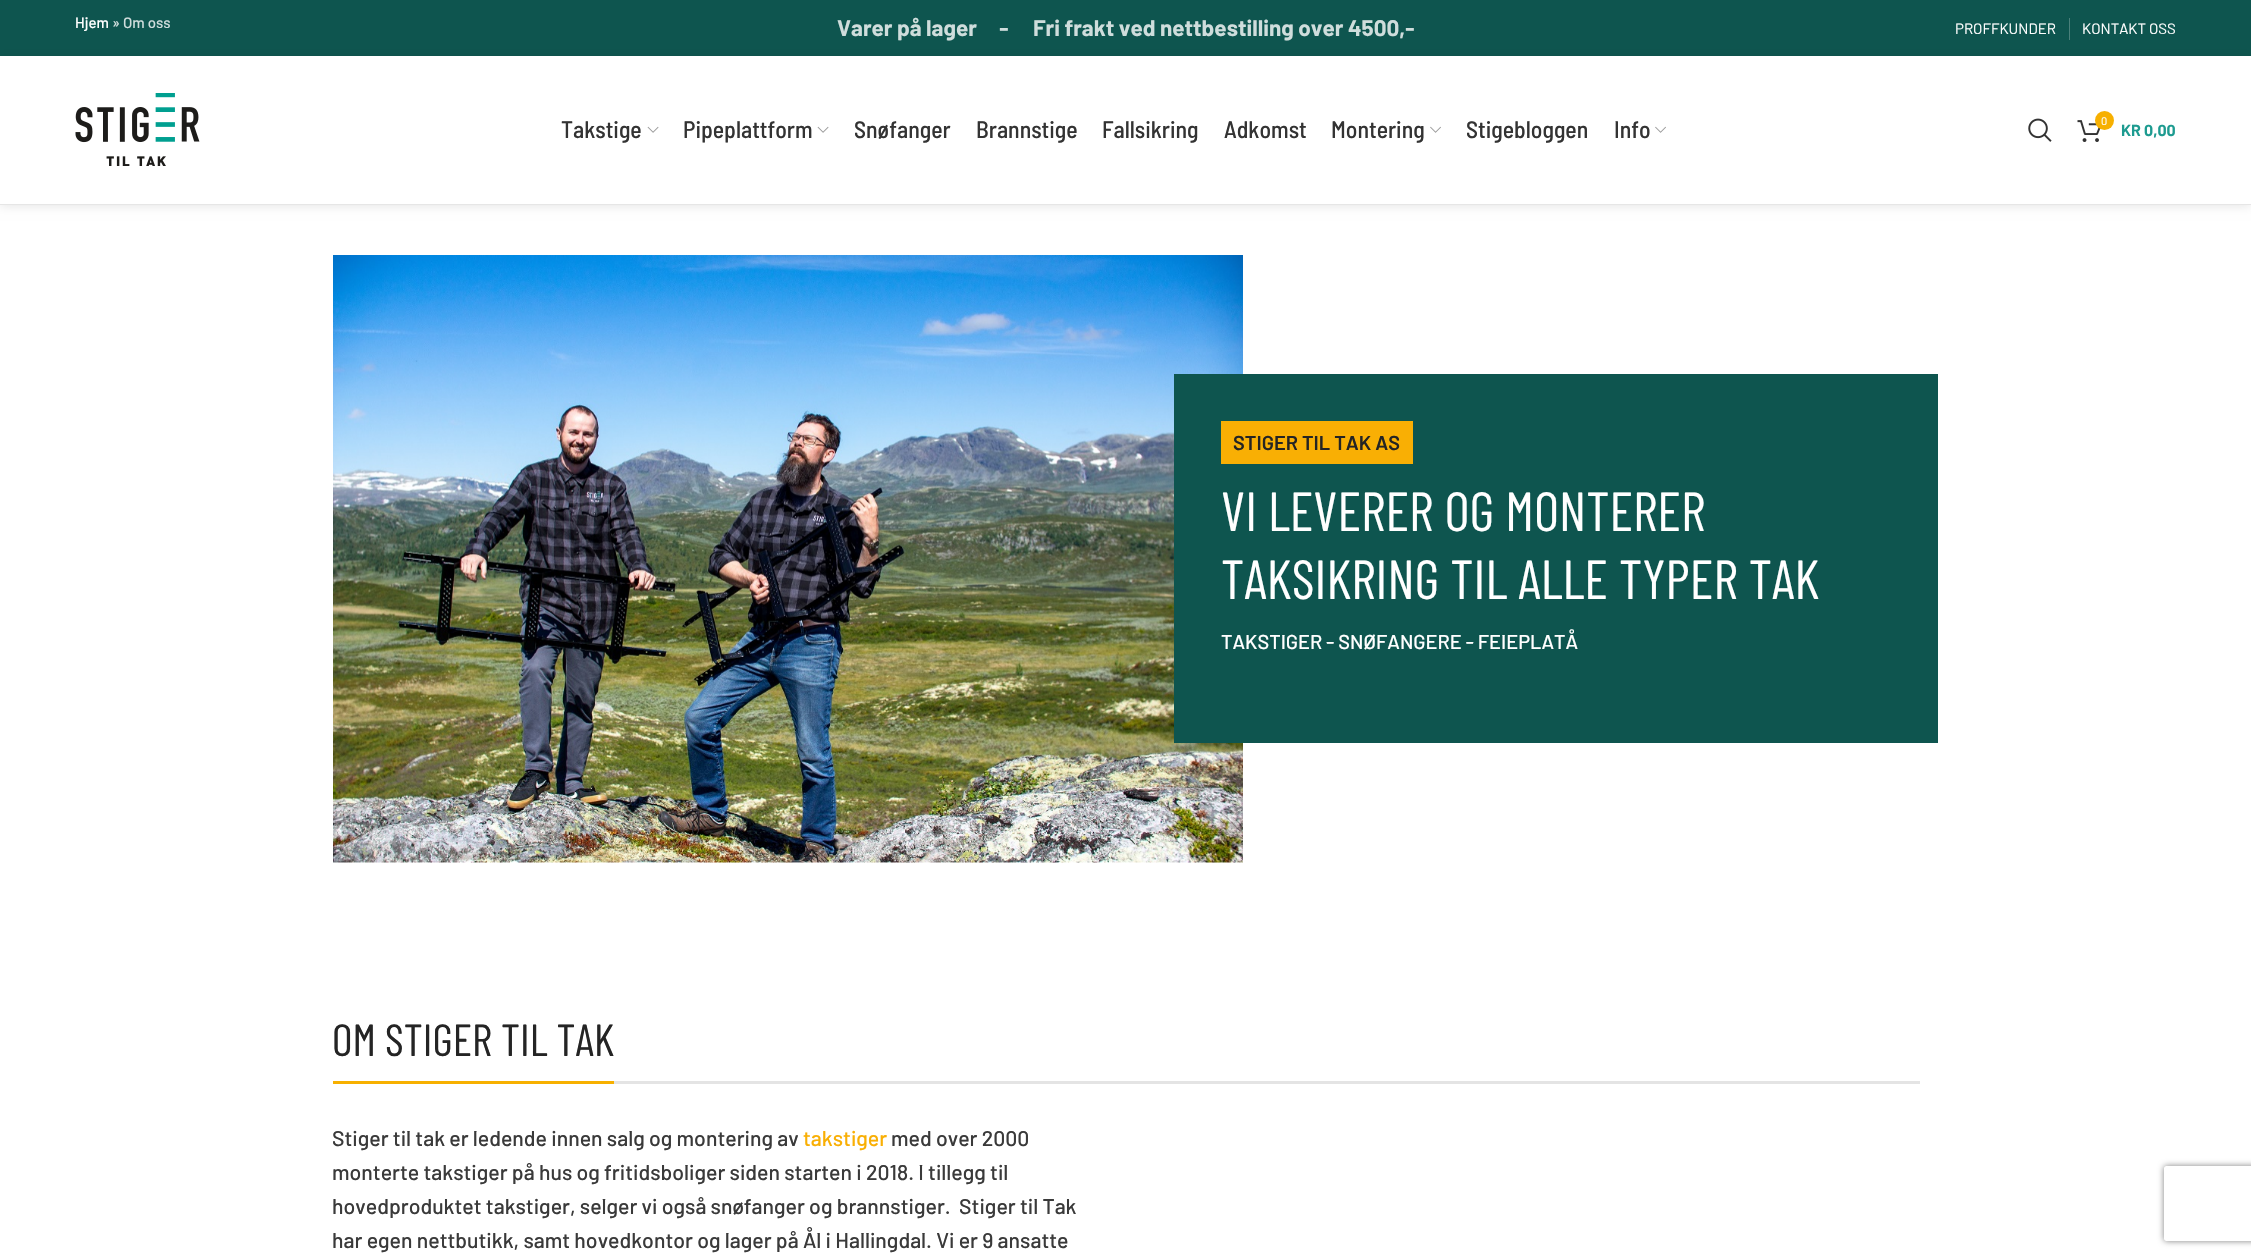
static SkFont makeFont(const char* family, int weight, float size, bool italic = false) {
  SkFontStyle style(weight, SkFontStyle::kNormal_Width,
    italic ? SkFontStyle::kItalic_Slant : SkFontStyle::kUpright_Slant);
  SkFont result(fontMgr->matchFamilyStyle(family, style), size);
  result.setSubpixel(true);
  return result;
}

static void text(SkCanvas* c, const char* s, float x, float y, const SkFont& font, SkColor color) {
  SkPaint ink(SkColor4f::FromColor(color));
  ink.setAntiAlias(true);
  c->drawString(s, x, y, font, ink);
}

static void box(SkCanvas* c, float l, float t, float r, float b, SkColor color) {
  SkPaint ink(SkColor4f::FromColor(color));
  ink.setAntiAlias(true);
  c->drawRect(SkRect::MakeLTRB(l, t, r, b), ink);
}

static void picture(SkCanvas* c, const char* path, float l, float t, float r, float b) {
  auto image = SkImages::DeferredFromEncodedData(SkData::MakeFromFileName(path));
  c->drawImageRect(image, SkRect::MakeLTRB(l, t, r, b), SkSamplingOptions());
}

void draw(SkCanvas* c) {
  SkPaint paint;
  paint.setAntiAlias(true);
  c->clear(0xffffffff);
  box(c, 0, 0, 2251, 56, 0xff0e554f);
  SkFont face1 = makeFont("Barlow", 500, 15);
  text(c, "Hjem", 75, 28, face1, 0xffffffff);
  text(c, "» Om oss", 112, 28, face1, 0xffcfdddc);
  SkFont face2 = makeFont("Barlow", 700, 22.5f);
  text(c, "Varer på lager     -", 837, 36, face2, 0xffcfdddc);
  text(c, "Fri frakt ved nettbestilling over 4500,-", 1033, 36, face2, 0xffcfdddc);
  SkFont face3 = makeFont("Barlow", 400, 15);
  text(c, "PROFFKUNDER", 1955, 34, face3, 0xffffffff);
  box(c, 2069, 18, 2070, 40, 0xff4a807b);
  text(c, "KONTAKT OSS", 2082, 34, face3, 0xffffffff);
  paint.setColor(0x1a000000);
  paint.setMaskFilter(SkMaskFilter::MakeBlur(kNormal_SkBlurStyle, 5));
  c->drawRect(SkRect::MakeLTRB(0, 58, 2251, 206), paint);
  paint.setMaskFilter(nullptr);
  box(c, 0, 56, 2251, 204, 0xffffffff);
  box(c, 0, 204, 2251, 205, 0xffe6e6e6);
  picture(c, "img_01.png", 75, 93, 200, 166);
  SkFont face4 = makeFont("Barlow Semi Condensed", 500, 23.75f);
  text(c, "Takstige", 561, 138, face4, 0xff333333);
  picture(c, "img_02.png", 647, 126, 659, 133);
  text(c, "Pipeplattform", 683, 138, face4, 0xff333333);
  picture(c, "img_02.png", 817, 126, 829, 133);
  text(c, "Snøfanger", 854, 138, face4, 0xff333333);
  text(c, "Brannstige", 976, 138, face4, 0xff333333);
  text(c, "Fallsikring", 1102, 138, face4, 0xff333333);
  text(c, "Adkomst", 1224, 138, face4, 0xff333333);
  text(c, "Montering", 1331, 138, face4, 0xff333333);
  picture(c, "img_03.png", 1430, 126, 1441, 133);
  text(c, "Stigebloggen", 1466, 138, face4, 0xff333333);
  text(c, "Info", 1614, 138, face4, 0xff333333);
  picture(c, "img_03.png", 1655, 126, 1666, 133);
  picture(c, "img_04.png", 2028, 118, 2052, 142);
  picture(c, "img_05.png", 2077, 120, 2101, 142);
  paint.setColor(0xfff7b000);
  c->drawCircle(2104.5f, 120.5f, 9.5f, paint);
  SkFont face5 = makeFont("Barlow", 400, 11);
  text(c, "0", 2101, 125, face5, 0xffffffff);
  SkFont face6 = makeFont("Barlow", 700, 16);
  text(c, "KR 0,00", 2121, 136, face6, 0xff1d9b90);
  picture(c, "img_06.png", 333, 255, 1243, 863);
  box(c, 1174, 374, 1938, 743, 0xff0e554f);
  box(c, 1221, 421, 1413, 464, 0xfff9af04);
  SkFont face7 = makeFont("Barlow", 600, 20);
  text(c, "STIGER TIL TAK AS", 1233, 450, face7, 0xff242424);
  SkFont face8 = makeFont("Barlow Condensed", 400, 55);
  text(c, "VI LEVERER OG MONTERER", 1221, 531, face8, 0xffffffff);
  text(c, "TAKSIKRING TIL ALLE TYPER TAK", 1221, 599, face8, 0xffffffff);
  SkFont face9 = makeFont("Barlow", 500, 20);
  text(c, "TAKSTIGER - SNØFANGERE - FEIEPLATÅ", 1221, 649, face9, 0xffffffff);
  box(c, 614, 1081, 1920, 1084, 0xffe4e4e4);
  box(c, 333, 1081, 614, 1084, 0xfff7b000);
  SkFont face10 = makeFont("Barlow Condensed", 400, 45);
  text(c, "OM STIGER TIL TAK", 332, 1056, face10, 0xff242424);
  SkFont face11 = makeFont("Barlow", 500, 21.25f);
  text(c, "Stiger til tak er ledende innen salg og montering av", 332, 1146, face11, 0xff3a3a3a);
  text(c, "takstiger", 803, 1146, face11, 0xfff9af04);
  text(c, "med over 2000", 891, 1146, face11, 0xff3a3a3a);
  text(c, "monterte takstiger på hus og fritidsboliger siden starten i 2018. I tillegg til", 332, 1180, face11, 0xff3a3a3a);
  text(c, "hovedproduktet takstiger, selger vi også snøfanger og brannstiger.  Stiger til Tak", 332, 1214, face11, 0xff3a3a3a);
  text(c, "har egen nettbutikk, samt hovedkontor og lager på Ål i Hallingdal. Vi er 9 ansatte", 332, 1248, face11, 0xff3a3a3a);
  c->save();
  c->clipPath(SkPathBuilder(SkPathFillType::kEvenOdd).moveTo(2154, 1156).lineTo(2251, 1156).lineTo(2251, 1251).lineTo(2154, 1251).close().moveTo(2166.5f, 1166).lineTo(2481.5f, 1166).cubicTo(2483, 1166, 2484, 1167, 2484, 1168.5f).lineTo(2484, 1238.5f).cubicTo(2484, 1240, 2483, 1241, 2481.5f, 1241).lineTo(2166.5f, 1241).cubicTo(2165, 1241, 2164, 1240, 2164, 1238.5f).lineTo(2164, 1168.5f).cubicTo(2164, 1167, 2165, 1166, 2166.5f, 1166).close().detach(), true);
  paint.setColor(0xff808080);
  paint.setMaskFilter(SkMaskFilter::MakeBlur(kNormal_SkBlurStyle, 3));
  c->drawRoundRect(SkRect::MakeLTRB(2164, 1166, 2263, 1241), 2.5f, 2.5f, paint);
  paint.setMaskFilter(nullptr);
  c->restore();
}
